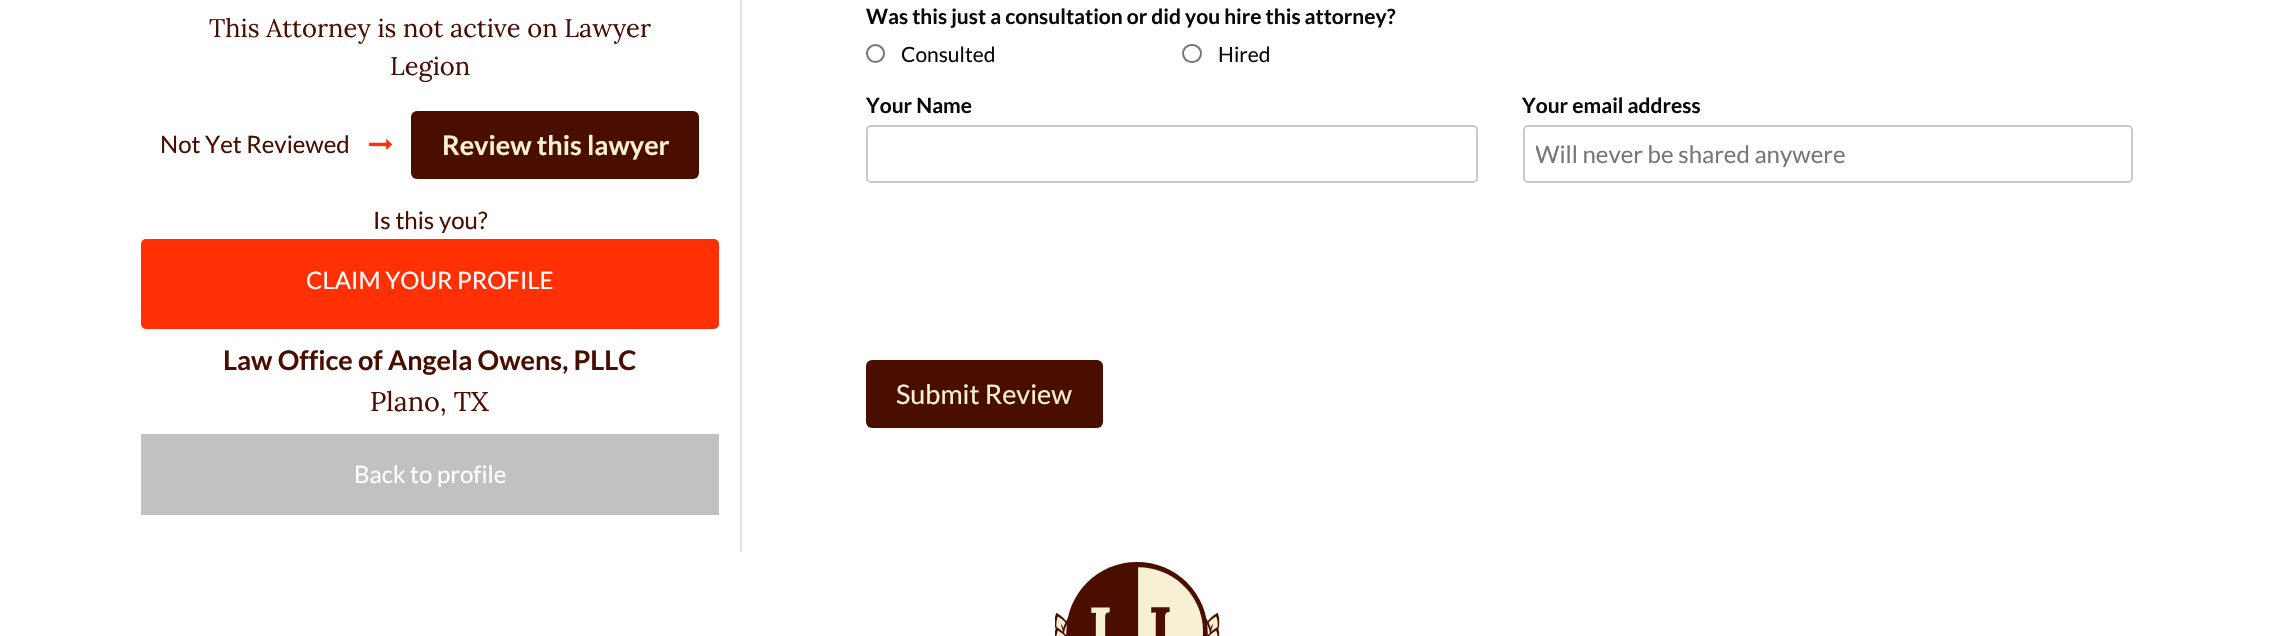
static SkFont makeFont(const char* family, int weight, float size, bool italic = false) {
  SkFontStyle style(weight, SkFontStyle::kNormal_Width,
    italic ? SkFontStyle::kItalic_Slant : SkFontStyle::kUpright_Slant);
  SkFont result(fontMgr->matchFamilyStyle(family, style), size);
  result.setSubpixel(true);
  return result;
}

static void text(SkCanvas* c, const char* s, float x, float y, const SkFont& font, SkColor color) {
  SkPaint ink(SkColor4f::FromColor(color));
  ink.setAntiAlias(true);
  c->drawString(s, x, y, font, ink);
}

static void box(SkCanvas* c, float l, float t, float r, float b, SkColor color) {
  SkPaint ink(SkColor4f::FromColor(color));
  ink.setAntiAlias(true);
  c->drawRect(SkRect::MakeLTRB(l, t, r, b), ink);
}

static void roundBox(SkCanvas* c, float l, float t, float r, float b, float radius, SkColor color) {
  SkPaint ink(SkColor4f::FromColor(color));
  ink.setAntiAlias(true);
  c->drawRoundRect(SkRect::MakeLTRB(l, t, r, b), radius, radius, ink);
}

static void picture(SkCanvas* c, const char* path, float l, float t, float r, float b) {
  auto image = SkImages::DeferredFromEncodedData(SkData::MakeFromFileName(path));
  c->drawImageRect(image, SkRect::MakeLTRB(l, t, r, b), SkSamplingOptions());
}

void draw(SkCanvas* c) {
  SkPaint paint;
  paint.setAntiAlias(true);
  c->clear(0xffffffff);
  SkFont face1 = makeFont("Lora", 400, 25.5f);
  text(c, "This Attorney is not active on Lawyer", 209, 37, face1, 0xff4a0e01);
  text(c, "Legion", 390, 75, face1, 0xff4a0e01);
  SkFont face2 = makeFont("Lato", 400, 24);
  text(c, "Not Yet Reviewed", 160, 153, face2, 0xff4a0e01);
  picture(c, "img_01.png", 369, 139, 393, 150);
  roundBox(c, 411, 111, 699, 179, 6, 0xff4a0e01);
  SkFont face3 = makeFont("Lato", 700, 27);
  text(c, "Review this lawyer", 442, 155, face3, 0xfff7f0d4);
  text(c, "Is this you?", 373, 229, face2, 0xff4a0e01);
  roundBox(c, 141, 239, 719, 329, 5, 0xffff3003);
  text(c, "CLAIM YOUR PROFILE", 306, 289, face2, 0xffffffff);
  text(c, "Law Office of Angela Owens, PLLC", 223, 370, face3, 0xff4a0e01);
  SkFont face4 = makeFont("Lora", 400, 27);
  text(c, "Plano, TX", 370, 411, face4, 0xff4a0e01);
  box(c, 141, 434, 719, 515, 0xffc2c1c1);
  text(c, "Back to profile", 354, 483, face2, 0xffffffff);
  box(c, 740, 0, 742, 552, 0xffe4e4e4);
  SkFont face5 = makeFont("Lato", 700, 21);
  text(c, "Was this just a consultation or did you hire this attorney?", 866, 24, face5, 0xff0a0a0a);
  paint.setStyle(SkPaint::kStroke_Style);
  paint.setStrokeWidth(2);
  paint.setColor(0xff767676);
  c->drawCircle(875.5f, 53.5f, 8.5f, paint);
  SkFont face6 = makeFont("Lato", 400, 21);
  text(c, "Consulted", 901, 62, face6, 0xff0a0a0a);
  c->drawRoundRect(SkRect::MakeLTRB(1183, 45, 1201, 62), 8.5f, 8.5f, paint);
  text(c, "Hired", 1218, 62, face6, 0xff0a0a0a);
  text(c, "Your Name", 866, 113, face5, 0xff0a0a0a);
  paint.setColor(0xffcacaca);
  c->drawRoundRect(SkRect::MakeLTRB(867, 126, 1477, 182), 4, 4, paint);
  text(c, "Your email address", 1522, 113, face5, 0xff0a0a0a);
  c->drawRoundRect(SkRect::MakeLTRB(1524, 126, 2132, 182), 4, 4, paint);
  c->save();
  c->clipRect(SkRect::MakeLTRB(1536, 140, 2120, 168));
  text(c, "Will never be shared anywere", 1535, 163, face2, 0xff777777);
  c->restore();
  roundBox(c, 866, 360, 1103, 428, 6, 0xff4a0e01);
  SkFont face7 = makeFont("Lato", 400, 27);
  text(c, "Submit Review", 896, 404, face7, 0xfff7f0d4);
  picture(c, "img_02.png", 1055, 562, 1220, 636);
}
